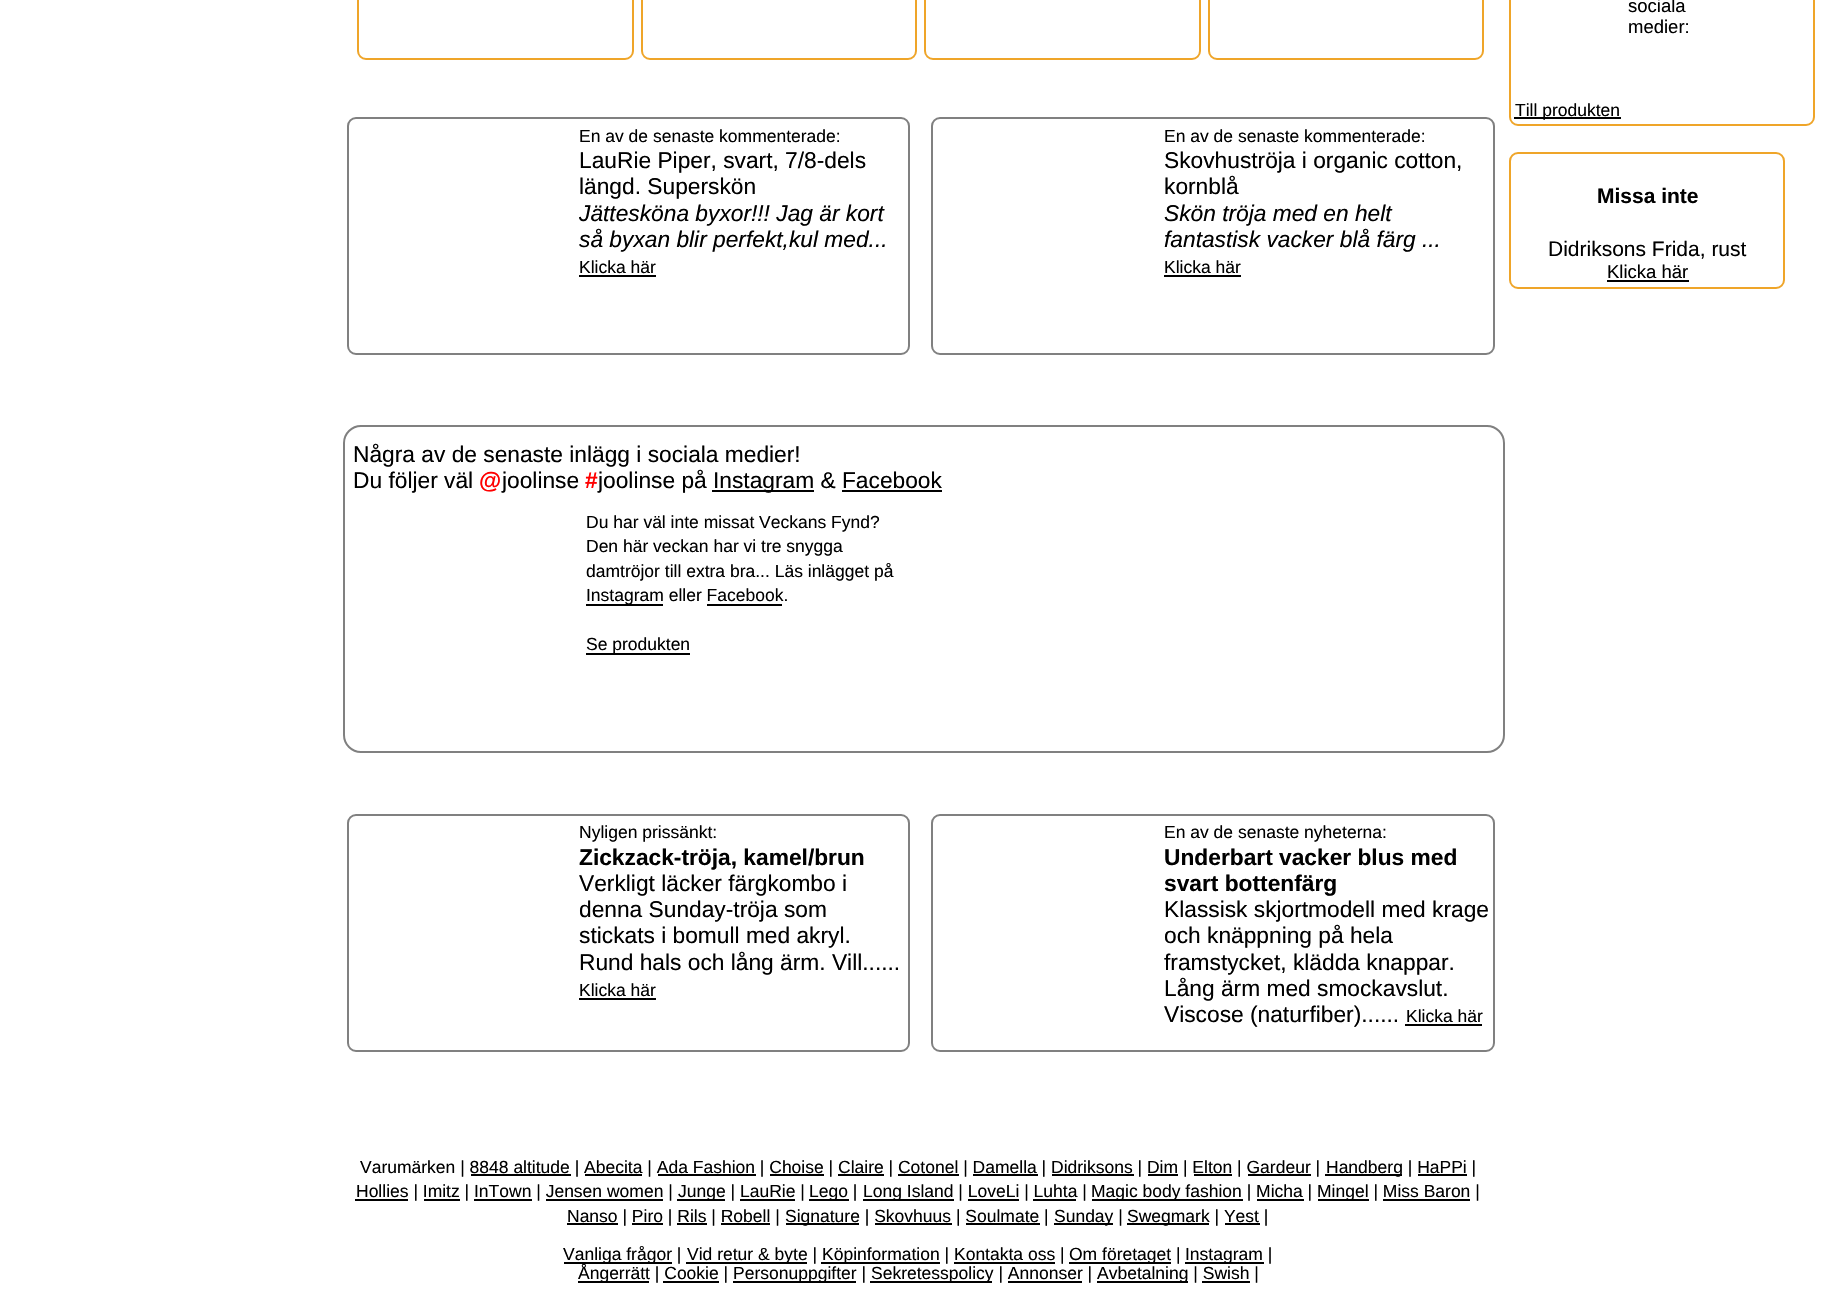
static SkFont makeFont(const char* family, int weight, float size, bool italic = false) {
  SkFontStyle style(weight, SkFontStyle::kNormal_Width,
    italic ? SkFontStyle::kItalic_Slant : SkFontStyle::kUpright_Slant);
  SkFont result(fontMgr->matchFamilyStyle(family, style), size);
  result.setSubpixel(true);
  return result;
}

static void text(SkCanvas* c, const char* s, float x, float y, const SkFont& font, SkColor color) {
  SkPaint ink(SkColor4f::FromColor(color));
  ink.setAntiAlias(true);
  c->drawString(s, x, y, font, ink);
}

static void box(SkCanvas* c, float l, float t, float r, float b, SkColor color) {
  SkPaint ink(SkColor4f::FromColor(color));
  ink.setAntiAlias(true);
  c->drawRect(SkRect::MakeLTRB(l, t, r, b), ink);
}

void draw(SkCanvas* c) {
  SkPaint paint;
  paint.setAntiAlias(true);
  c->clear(0xffffffff);
  paint.setStyle(SkPaint::kStroke_Style);
  paint.setStrokeWidth(2);
  paint.setColor(0xffefa529);
  c->drawRoundRect(SkRect::MakeLTRB(358, -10, 633, 59), 8, 8, paint);
  c->drawRoundRect(SkRect::MakeLTRB(642, -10, 916, 59), 8, 8, paint);
  c->drawRoundRect(SkRect::MakeLTRB(925, -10, 1200, 59), 8, 8, paint);
  c->drawRoundRect(SkRect::MakeLTRB(1209, -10, 1483, 59), 8, 8, paint);
  paint.setColor(0xff808080);
  c->drawRoundRect(SkRect::MakeLTRB(348, 118, 909, 354), 8, 8, paint);
  SkFont face1 = makeFont("Liberation Sans", 400, 17.5f);
  text(c, "En av de senaste kommenterade:", 579, 142, face1, 0xff000000);
  SkFont face2 = makeFont("Liberation Sans", 400, 22.75f);
  text(c, "LauRie Piper, svart, 7/8-dels", 579, 168, face2, 0xff000000);
  text(c, "längd. Superskön", 579, 194, face2, 0xff000000);
  SkFont face3 = makeFont("Liberation Sans", 400, 22.75f, true);
  text(c, "Jättesköna byxor!!! Jag är kort", 579, 221, face3, 0xff000000);
  text(c, "så byxan blir perfekt,kul med...", 579, 247, face3, 0xff000000);
  text(c, "Klicka här", 579, 273, face1, 0xff000000);
  box(c, 579, 275, 656, 277, 0xff000000);
  c->drawRoundRect(SkRect::MakeLTRB(932, 118, 1494, 354), 8, 8, paint);
  text(c, "En av de senaste kommenterade:", 1164, 142, face1, 0xff000000);
  text(c, "Skovhuströja i organic cotton,", 1164, 168, face2, 0xff000000);
  text(c, "kornblå", 1164, 194, face2, 0xff000000);
  text(c, "Skön tröja med en helt", 1164, 221, face3, 0xff000000);
  text(c, "fantastisk vacker blå färg ...", 1164, 247, face3, 0xff000000);
  text(c, "Klicka här", 1164, 273, face1, 0xff000000);
  box(c, 1164, 275, 1241, 277, 0xff000000);
  c->drawRoundRect(SkRect::MakeLTRB(344, 426, 1504, 752), 17, 17, paint);
  text(c, "Några av de senaste inlägg i sociala medier!", 353, 462, face2, 0xff000000);
  text(c, "Du följer väl", 353, 488, face2, 0xff000000);
  SkFont face4 = makeFont("Liberation Sans", 700, 22.75f);
  text(c, "@", 479, 488, face4, 0xffff0000);
  text(c, "joolinse", 502, 488, face2, 0xff000000);
  text(c, "#", 585, 488, face4, 0xffff0000);
  text(c, "joolinse på", 598, 488, face2, 0xff000000);
  box(c, 712, 490, 814, 492, 0xff000000);
  text(c, "Instagram & Facebook", 713, 488, face2, 0xff000000);
  box(c, 842, 490, 942, 492, 0xff000000);
  text(c, "Du har väl inte missat Veckans Fynd?", 586, 528, face1, 0xff000000);
  text(c, "Den här veckan har vi tre snygga", 586, 552, face1, 0xff000000);
  text(c, "damtröjor till extra bra... Läs inlägget på", 586, 577, face1, 0xff000000);
  box(c, 586, 604, 663, 606, 0xff000000);
  text(c, "Instagram eller Facebook.", 586, 601, face1, 0xff000000);
  box(c, 707, 604, 782, 606, 0xff000000);
  box(c, 586, 653, 690, 655, 0xff000000);
  text(c, "Se produkten", 586, 650, face1, 0xff000000);
  c->drawRoundRect(SkRect::MakeLTRB(348, 815, 909, 1051), 8, 8, paint);
  text(c, "Nyligen prissänkt:", 579, 838, face1, 0xff000000);
  text(c, "Zickzack-tröja, kamel/brun", 579, 865, face4, 0xff000000);
  text(c, "Verkligt läcker färgkombo i", 579, 891, face2, 0xff000000);
  text(c, "denna Sunday-tröja som", 579, 917, face2, 0xff000000);
  text(c, "stickats i bomull med akryl.", 579, 943, face2, 0xff000000);
  text(c, "Rund hals och lång ärm. Vill......", 579, 970, face2, 0xff000000);
  text(c, "Klicka här", 579, 996, face1, 0xff000000);
  box(c, 579, 998, 656, 1000, 0xff000000);
  c->drawRoundRect(SkRect::MakeLTRB(932, 815, 1494, 1051), 8, 8, paint);
  text(c, "En av de senaste nyheterna:", 1164, 838, face1, 0xff000000);
  text(c, "Underbart vacker blus med", 1164, 865, face4, 0xff000000);
  text(c, "svart bottenfärg", 1164, 891, face4, 0xff000000);
  text(c, "Klassisk skjortmodell med krage", 1164, 917, face2, 0xff000000);
  text(c, "och knäppning på hela", 1164, 943, face2, 0xff000000);
  text(c, "framstycket, klädda knappar.", 1164, 970, face2, 0xff000000);
  text(c, "Lång ärm med smockavslut.", 1164, 996, face2, 0xff000000);
  text(c, "Viscose (naturfiber)......", 1164, 1022, face2, 0xff000000);
  text(c, "Klicka här", 1406, 1022, face1, 0xff000000);
  box(c, 1405, 1024, 1482, 1026, 0xff000000);
  text(c, "Varumärken | 8848 altitude | Abecita | Ada Fashion | Choise | Claire | Cotonel | Damella | Didriksons | Dim | Elton | Gardeur |", 360, 1173, face1, 0xff000000);
  box(c, 1325, 1174, 1402, 1176, 0xff000000);
  text(c, "Handberg | HaPPi |", 1326, 1173, face1, 0xff000000);
  box(c, 471, 1174, 571, 1176, 0xff000000);
  box(c, 585, 1174, 642, 1176, 0xff000000);
  box(c, 658, 1174, 756, 1176, 0xff000000);
  box(c, 770, 1174, 824, 1176, 0xff000000);
  box(c, 838, 1174, 884, 1176, 0xff000000);
  box(c, 898, 1174, 959, 1176, 0xff000000);
  box(c, 973, 1174, 1038, 1176, 0xff000000);
  box(c, 1052, 1174, 1134, 1176, 0xff000000);
  box(c, 1148, 1174, 1178, 1176, 0xff000000);
  box(c, 1194, 1174, 1232, 1176, 0xff000000);
  box(c, 1248, 1174, 1311, 1176, 0xff000000);
  box(c, 1418, 1174, 1467, 1176, 0xff000000);
  box(c, 355, 1199, 408, 1201, 0xff000000);
  text(c, "Hollies | Imitz | InTown | Jensen women |", 356, 1197, face1, 0xff000000);
  box(c, 677, 1199, 725, 1201, 0xff000000);
  text(c, "Junge | LauRie |", 678, 1197, face1, 0xff000000);
  box(c, 809, 1199, 849, 1201, 0xff000000);
  text(c, "Lego |", 809, 1197, face1, 0xff000000);
  box(c, 863, 1199, 954, 1201, 0xff000000);
  text(c, "Long Island | LoveLi | Luhta |", 863, 1197, face1, 0xff000000);
  box(c, 1092, 1199, 1243, 1201, 0xff000000);
  text(c, "Magic body fashion | Micha |", 1091, 1197, face1, 0xff000000);
  box(c, 1318, 1199, 1369, 1201, 0xff000000);
  text(c, "Mingel | Miss Baron |", 1317, 1197, face1, 0xff000000);
  box(c, 424, 1199, 460, 1201, 0xff000000);
  box(c, 474, 1199, 532, 1201, 0xff000000);
  box(c, 546, 1199, 663, 1201, 0xff000000);
  box(c, 740, 1199, 795, 1201, 0xff000000);
  box(c, 968, 1199, 1019, 1201, 0xff000000);
  box(c, 1033, 1199, 1076, 1201, 0xff000000);
  box(c, 1257, 1199, 1304, 1201, 0xff000000);
  box(c, 1383, 1199, 1470, 1201, 0xff000000);
  box(c, 567, 1223, 618, 1225, 0xff000000);
  text(c, "Nanso | Piro | Rils | Robell |", 567, 1222, face1, 0xff000000);
  box(c, 786, 1223, 859, 1225, 0xff000000);
  text(c, "Signature | Skovhuus | Soulmate |", 785, 1222, face1, 0xff000000);
  box(c, 1054, 1223, 1113, 1225, 0xff000000);
  text(c, "Sunday |", 1054, 1222, face1, 0xff000000);
  box(c, 1127, 1223, 1209, 1225, 0xff000000);
  text(c, "Swegmark | Yest |", 1127, 1222, face1, 0xff000000);
  box(c, 632, 1223, 663, 1225, 0xff000000);
  box(c, 677, 1223, 707, 1225, 0xff000000);
  box(c, 721, 1223, 770, 1225, 0xff000000);
  box(c, 875, 1223, 952, 1225, 0xff000000);
  box(c, 966, 1223, 1040, 1225, 0xff000000);
  box(c, 1225, 1223, 1260, 1225, 0xff000000);
  box(c, 564, 1262, 672, 1264, 0xff000000);
  text(c, "Vanliga frågor |", 563, 1260, face1, 0xff000000);
  box(c, 686, 1262, 807, 1264, 0xff000000);
  text(c, "Vid retur & byte |", 687, 1260, face1, 0xff000000);
  box(c, 821, 1262, 940, 1264, 0xff000000);
  text(c, "Köpinformation | Kontakta oss |", 822, 1260, face1, 0xff000000);
  box(c, 1069, 1262, 1171, 1264, 0xff000000);
  text(c, "Om företaget |", 1069, 1260, face1, 0xff000000);
  box(c, 1185, 1262, 1264, 1264, 0xff000000);
  text(c, "Instagram |", 1185, 1260, face1, 0xff000000);
  box(c, 578, 1281, 649, 1283, 0xff000000);
  text(c, "Ångerrätt | Cookie |", 578, 1279, face1, 0xff000000);
  box(c, 733, 1281, 856, 1283, 0xff000000);
  text(c, "Personuppgifter |", 733, 1279, face1, 0xff000000);
  box(c, 954, 1262, 1055, 1264, 0xff000000);
  box(c, 663, 1281, 719, 1283, 0xff000000);
  box(c, 870, 1281, 992, 1283, 0xff000000);
  text(c, "Sekretesspolicy | Annonser |", 871, 1279, face1, 0xff000000);
  box(c, 1097, 1281, 1188, 1283, 0xff000000);
  text(c, "Avbetalning | Swish |", 1097, 1279, face1, 0xff000000);
  box(c, 1008, 1281, 1082, 1283, 0xff000000);
  box(c, 1202, 1281, 1250, 1283, 0xff000000);
  paint.setColor(0xffefa529);
  c->drawRoundRect(SkRect::MakeLTRB(1510, -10, 1814, 125), 8, 8, paint);
  SkFont face5 = makeFont("Liberation Sans", 400, 18.5f);
  text(c, "sociala", 1628, 12, face5, 0xff000000);
  text(c, "medier:", 1628, 33, face5, 0xff000000);
  box(c, 1514, 117, 1621, 119, 0xff000000);
  text(c, "Till produkten", 1515, 116, face1, 0xff000000);
  c->drawRoundRect(SkRect::MakeLTRB(1510, 153, 1784, 288), 8, 8, paint);
  SkFont face6 = makeFont("Liberation Sans", 700, 21);
  text(c, "Missa inte", 1597, 203, face6, 0xff000000);
  SkFont face7 = makeFont("Liberation Sans", 400, 21);
  text(c, "Didriksons Frida, rust", 1548, 256, face7, 0xff000000);
  text(c, "Klicka här", 1607, 278, face5, 0xff000000);
  box(c, 1607, 280, 1689, 282, 0xff000000);
}
